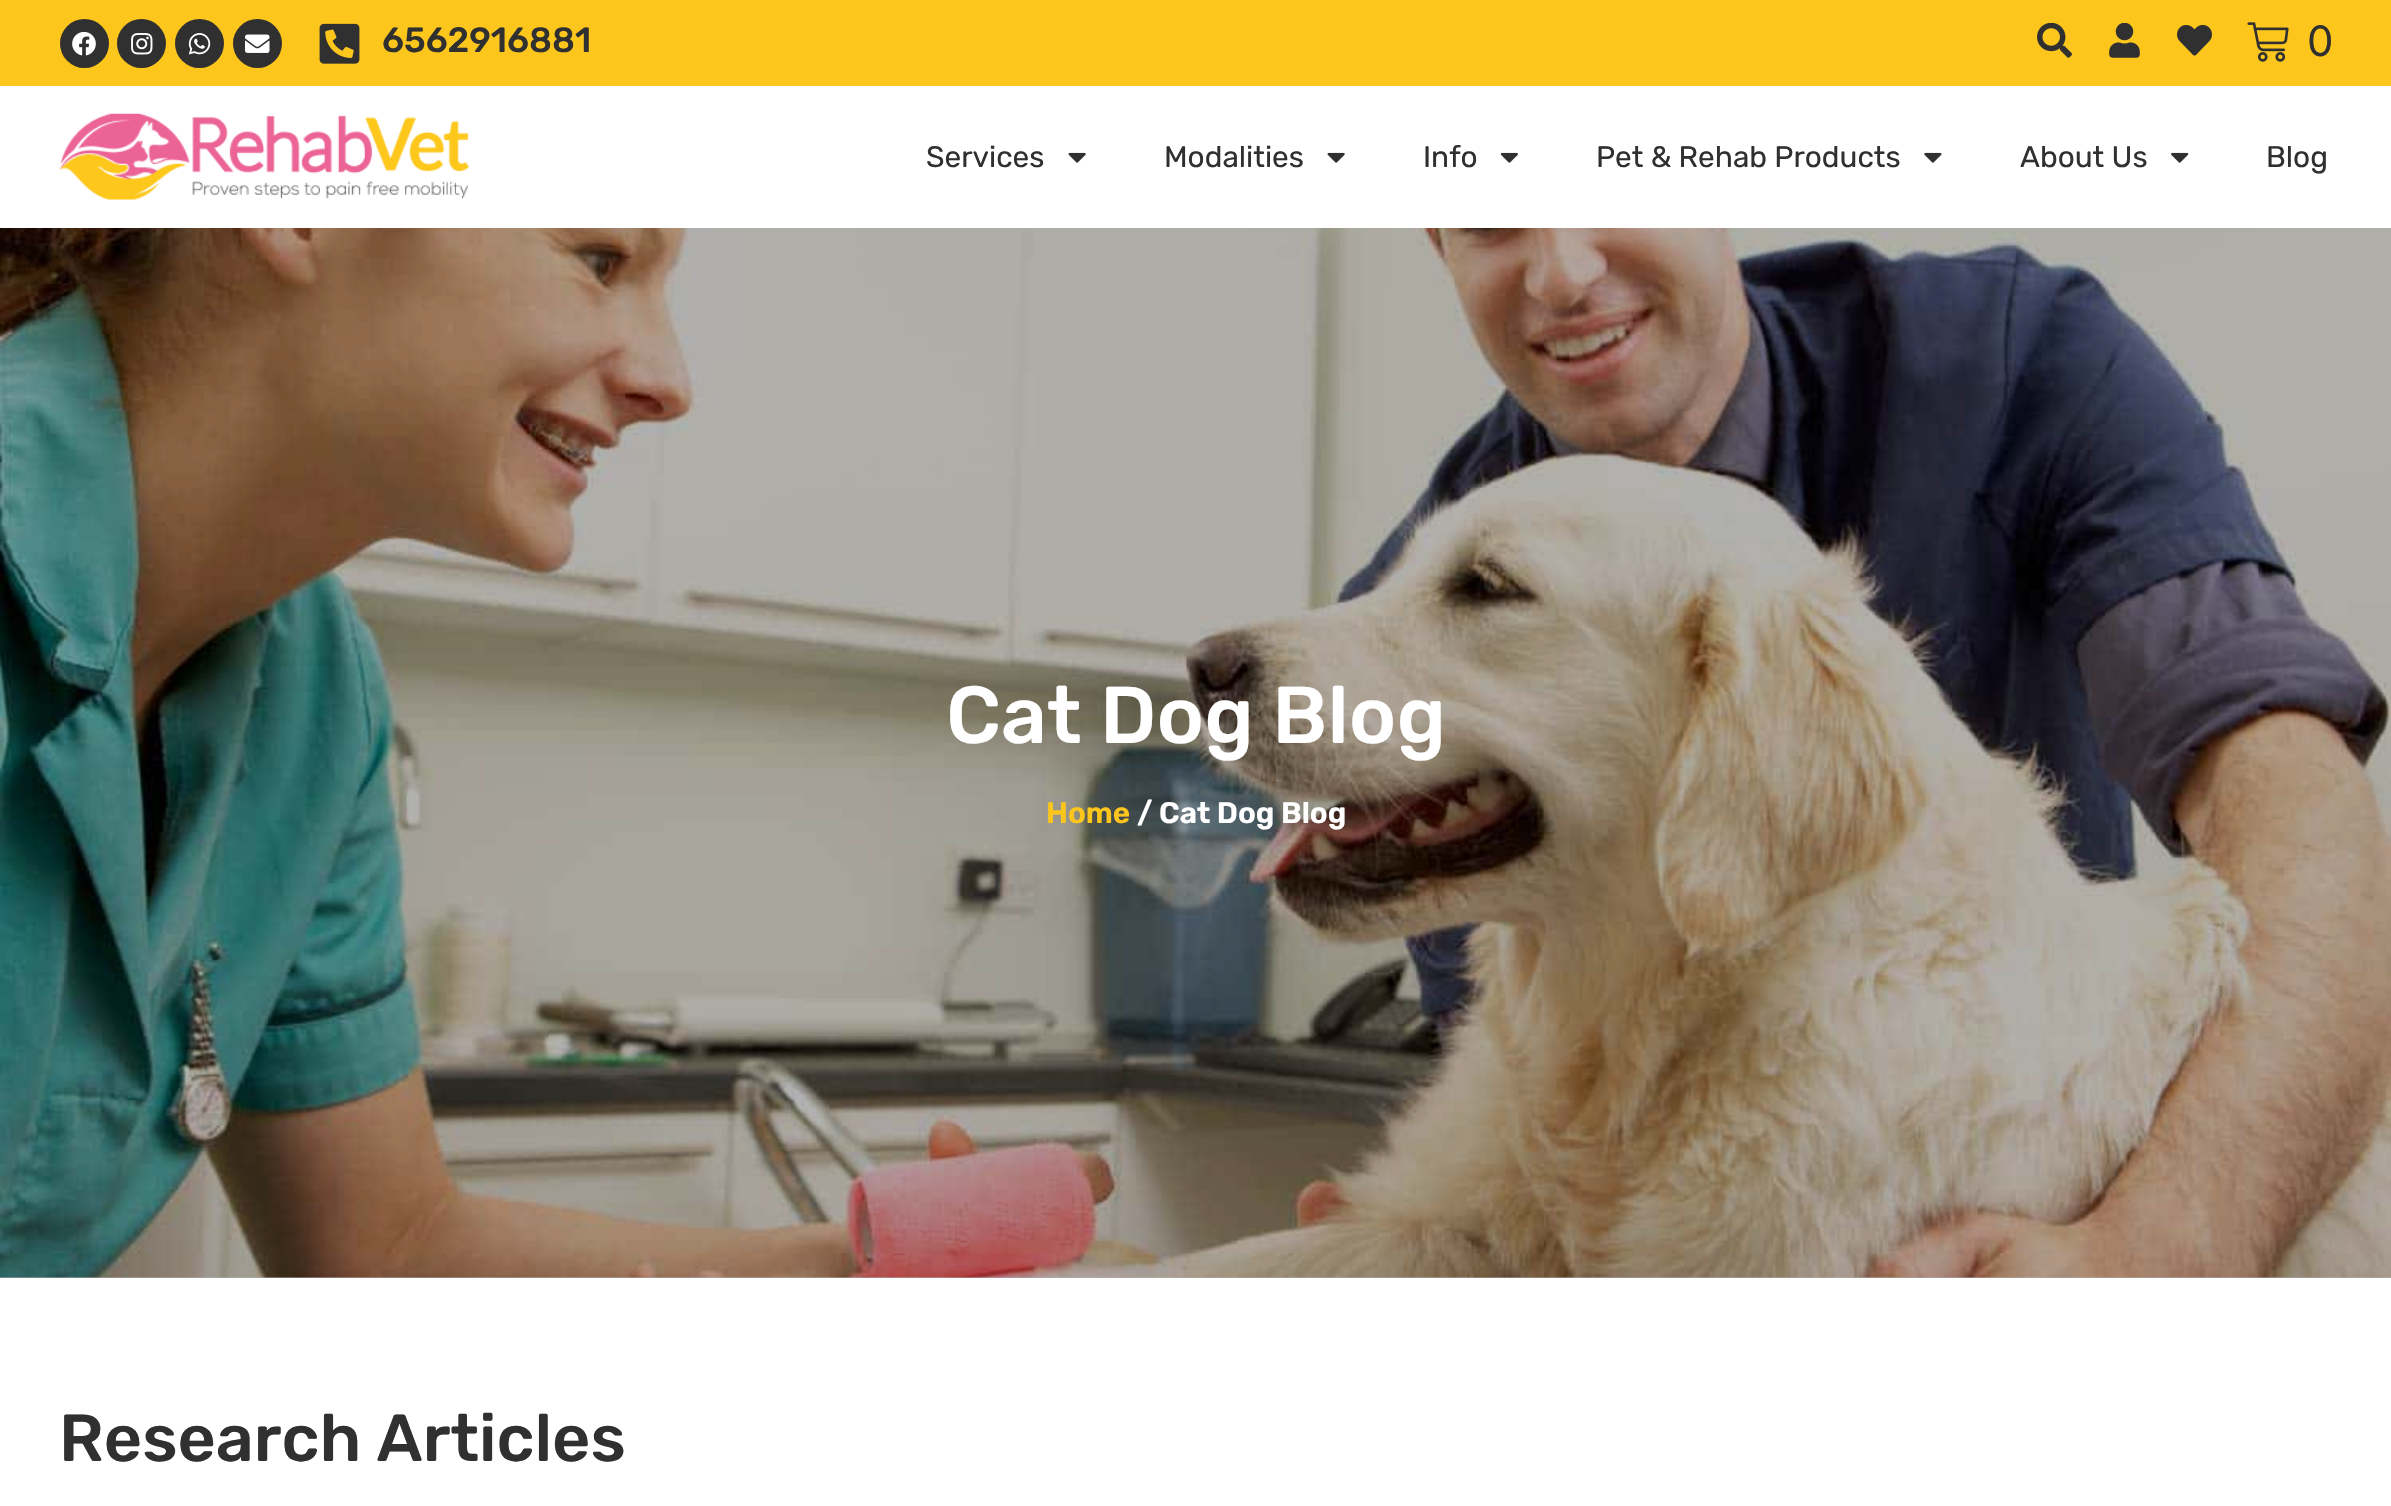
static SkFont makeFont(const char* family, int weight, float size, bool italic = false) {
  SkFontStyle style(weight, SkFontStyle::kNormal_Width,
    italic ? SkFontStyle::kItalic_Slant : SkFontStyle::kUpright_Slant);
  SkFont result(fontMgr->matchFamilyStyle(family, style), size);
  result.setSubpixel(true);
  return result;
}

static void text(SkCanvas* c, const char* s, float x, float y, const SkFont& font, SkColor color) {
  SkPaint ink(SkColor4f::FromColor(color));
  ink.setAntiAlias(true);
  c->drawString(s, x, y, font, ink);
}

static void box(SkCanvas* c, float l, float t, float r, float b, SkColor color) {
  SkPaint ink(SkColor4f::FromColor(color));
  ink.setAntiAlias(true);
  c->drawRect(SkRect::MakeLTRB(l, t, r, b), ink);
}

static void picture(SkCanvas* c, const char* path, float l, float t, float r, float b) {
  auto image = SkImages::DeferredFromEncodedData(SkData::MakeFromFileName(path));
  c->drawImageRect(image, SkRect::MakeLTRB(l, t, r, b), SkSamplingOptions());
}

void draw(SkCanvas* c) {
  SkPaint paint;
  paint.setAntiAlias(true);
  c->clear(0xffffffff);
  box(c, 0, 1277, 2391, 1278, 0xffb3b3b3);
  box(c, 0, 0, 2391, 86, 0xfffdc61c);
  paint.setColor(0xff303030);
  c->drawCircle(84.5f, 43.5f, 24.5f, paint);
  picture(c, "img_01.png", 72, 32, 96, 56);
  c->drawCircle(141.5f, 43.5f, 24.5f, paint);
  picture(c, "img_02.png", 131, 33, 153, 55);
  c->drawCircle(199.5f, 43.5f, 24.5f, paint);
  picture(c, "img_03.png", 188, 33, 211, 55);
  c->drawCircle(257.5f, 43.5f, 24.5f, paint);
  picture(c, "img_04.png", 245, 34, 270, 53);
  picture(c, "img_05.png", 319, 23, 360, 64);
  SkFont face1 = makeFont("Rubik", 500, 35);
  text(c, "6562916881", 382, 52, face1, 0xff303030);
  picture(c, "img_06.png", 2037, 23, 2072, 58);
  picture(c, "img_07.png", 2109, 23, 2140, 58);
  picture(c, "img_08.png", 2177, 25, 2212, 56);
  picture(c, "img_09.png", 2247, 22, 2289, 62);
  SkFont face2 = makeFont("Inter", 400, 42);
  text(c, "0", 2307, 56, face2, 0xff303030);
  picture(c, "img_10.png", 59, 113, 469, 200);
  SkFont face3 = makeFont("Rubik", 400, 29.75f);
  text(c, "Services", 926, 167, face3, 0xff303030);
  picture(c, "img_11.png", 1068, 152, 1086, 163);
  text(c, "Modalities", 1164, 167, face3, 0xff303030);
  picture(c, "img_11.png", 1327, 152, 1345, 163);
  text(c, "Info", 1423, 167, face3, 0xff303030);
  picture(c, "img_12.png", 1500, 152, 1518, 163);
  text(c, "Pet & Rehab Products", 1596, 167, face3, 0xff303030);
  picture(c, "img_13.png", 1924, 152, 1942, 163);
  text(c, "About Us", 2020, 167, face3, 0xff303030);
  picture(c, "img_14.png", 2171, 152, 2189, 163);
  text(c, "Blog", 2266, 167, face3, 0xff303030);
  picture(c, "img_15.png", 0, 228, 2391, 1278);
  SkFont face4 = makeFont("Rubik", 500, 80.5f);
  text(c, "Cat Dog Blog", 946, 743, face4, 0xffffffff);
  SkFont face5 = makeFont("Rubik", 600, 29.75f);
  text(c, "Home", 1046, 823, face5, 0xfffdc61c);
  text(c, "/ Cat Dog Blog", 1137, 823, face5, 0xffffffff);
  SkFont face6 = makeFont("Rubik", 500, 66.5f);
  text(c, "Research Articles", 59, 1461, face6, 0xff303030);
}
